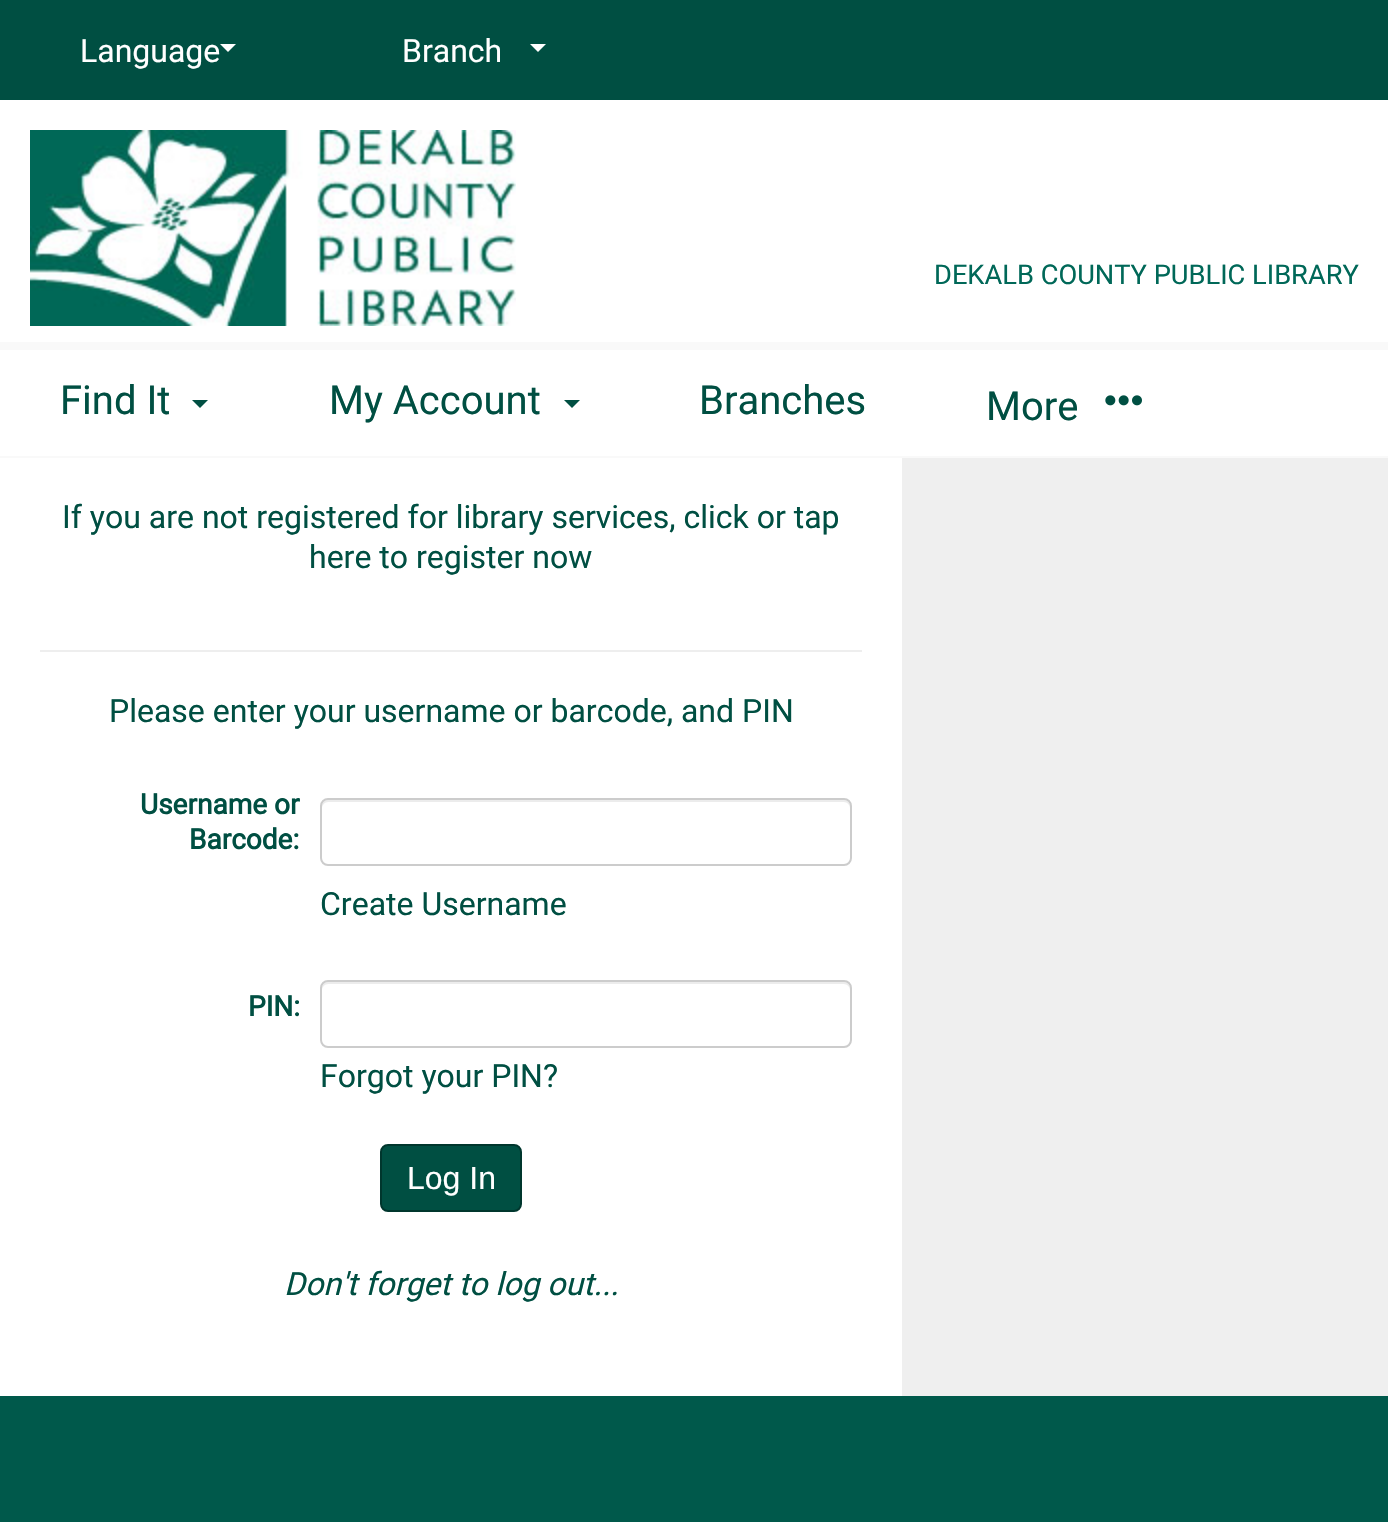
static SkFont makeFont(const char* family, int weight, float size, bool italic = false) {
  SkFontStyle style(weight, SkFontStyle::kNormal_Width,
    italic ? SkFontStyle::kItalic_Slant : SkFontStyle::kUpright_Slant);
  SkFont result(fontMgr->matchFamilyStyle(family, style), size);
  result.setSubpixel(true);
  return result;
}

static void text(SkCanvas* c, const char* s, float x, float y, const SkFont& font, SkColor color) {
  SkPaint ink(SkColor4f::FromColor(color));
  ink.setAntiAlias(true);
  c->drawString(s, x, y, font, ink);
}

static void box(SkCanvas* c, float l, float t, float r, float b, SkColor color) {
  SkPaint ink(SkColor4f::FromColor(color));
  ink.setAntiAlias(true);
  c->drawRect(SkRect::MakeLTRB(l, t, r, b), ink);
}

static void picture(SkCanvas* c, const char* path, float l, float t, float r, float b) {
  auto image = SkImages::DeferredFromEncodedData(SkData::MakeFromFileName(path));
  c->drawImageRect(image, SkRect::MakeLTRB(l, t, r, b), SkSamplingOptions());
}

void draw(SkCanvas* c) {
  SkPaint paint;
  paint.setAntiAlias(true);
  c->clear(0xff004f42);
  box(c, 0, 456, 1388, 458, 0xfff9f9f9);
  SkFont face1 = makeFont("Roboto", 400, 32);
  text(c, "Language", 80, 62, face1, 0xffffffff);
  paint.setColor(0xffffffff);
  c->drawPath(SkPathBuilder().moveTo(220, 44).lineTo(236, 44).lineTo(228, 52).close().detach(), paint);
  text(c, "Branch", 402, 62, face1, 0xffffffff);
  c->drawPath(SkPathBuilder().moveTo(530, 44).lineTo(546, 44).lineTo(538, 52).close().detach(), paint);
  box(c, 0, 350, 1388, 456, 0xffffffff);
  box(c, 0, 342, 1388, 350, 0xfff9f9f9);
  SkFont face2 = makeFont("Roboto", 400, 40);
  text(c, "Find It", 60, 414, face2, 0xff004f42);
  paint.setColor(0xff004f42);
  c->drawPath(SkPathBuilder().moveTo(192, 400).lineTo(208, 400).lineTo(200, 408).close().detach(), paint);
  text(c, "My Account", 329, 414, face2, 0xff004f42);
  c->drawPath(SkPathBuilder().moveTo(564, 400).lineTo(580, 400).lineTo(572, 408).close().detach(), paint);
  text(c, "Branches", 699, 414, face2, 0xff004f42);
  text(c, "More", 986, 420, face2, 0xff004f42);
  picture(c, "img_01.png", 1105, 395, 1142, 406);
  box(c, 0, 100, 1388, 342, 0xffffffff);
  picture(c, "img_02.png", 30, 130, 516, 326);
  SkFont face3 = makeFont("Roboto", 400, 27.25f);
  text(c, "DEKALB COUNTY PUBLIC LIBRARY", 934, 284, face3, 0xff006858);
  box(c, 902, 458, 1388, 1396, 0xffefefef);
  box(c, 0, 458, 902, 1396, 0xffffffff);
  text(c, "If you are not registered for library services, click or tap", 62, 528, face1, 0xff004f42);
  text(c, "here to register now", 309, 568, face1, 0xff004f42);
  box(c, 40, 650, 862, 652, 0xffeeeeee);
  text(c, "Please enter your username or barcode, and PIN", 109, 722, face1, 0xff004f42);
  SkFont face4 = makeFont("Roboto", 700, 28);
  text(c, "Username or", 140, 814, face4, 0xff004f42);
  text(c, "Barcode:", 189, 849, face4, 0xff004f42);
  paint.setColor(0xffececec);
  c->drawPath(SkPathBuilder().moveTo(328, 802).lineTo(844, 802).cubicTo(847, 802, 850, 805, 850, 808).lineTo(850, 806).cubicTo(850, 803, 847, 800, 844, 800).lineTo(328, 800).cubicTo(325, 800, 322, 803, 322, 806).lineTo(322, 808).cubicTo(322, 805, 325, 802, 328, 802).close().detach(), paint);
  paint.setStyle(SkPaint::kStroke_Style);
  paint.setStrokeWidth(2);
  paint.setColor(0xffcccccc);
  c->drawRoundRect(SkRect::MakeLTRB(321, 799, 851, 865), 7, 7, paint);
  text(c, "Create Username", 320, 915, face1, 0xff004f42);
  text(c, "PIN:", 248, 1016, face4, 0xff004f42);
  paint.setStyle(SkPaint::kFill_Style);
  paint.setColor(0xffececec);
  c->drawPath(SkPathBuilder().moveTo(328, 984).lineTo(844, 984).cubicTo(847, 984, 850, 987, 850, 990).lineTo(850, 988).cubicTo(850, 985, 847, 982, 844, 982).lineTo(328, 982).cubicTo(325, 982, 322, 985, 322, 988).lineTo(322, 990).cubicTo(322, 987, 325, 984, 328, 984).close().detach(), paint);
  paint.setStyle(SkPaint::kStroke_Style);
  paint.setColor(0xffcccccc);
  c->drawRoundRect(SkRect::MakeLTRB(321, 981, 851, 1047), 7, 7, paint);
  text(c, "Forgot your PIN?", 320, 1087, face1, 0xff004f42);
  paint.setStyle(SkPaint::kFill_Style);
  paint.setColor(0xff004f42);
  c->drawRoundRect(SkRect::MakeLTRB(381, 1145, 521, 1211), 7, 7, paint);
  paint.setStyle(SkPaint::kStroke_Style);
  paint.setColor(0xff00362d);
  c->drawRoundRect(SkRect::MakeLTRB(381, 1145, 521, 1211), 7, 7, paint);
  SkFont face5 = makeFont("Liberation Sans", 400, 32);
  text(c, "Log In", 407, 1189, face5, 0xffffffff);
  SkFont face6 = makeFont("Roboto", 400, 32, true);
  text(c, "Don't forget to log out...", 284, 1295, face6, 0xff004f42);
  box(c, 0, 1396, 1388, 1522, 0xff00594b);
}
